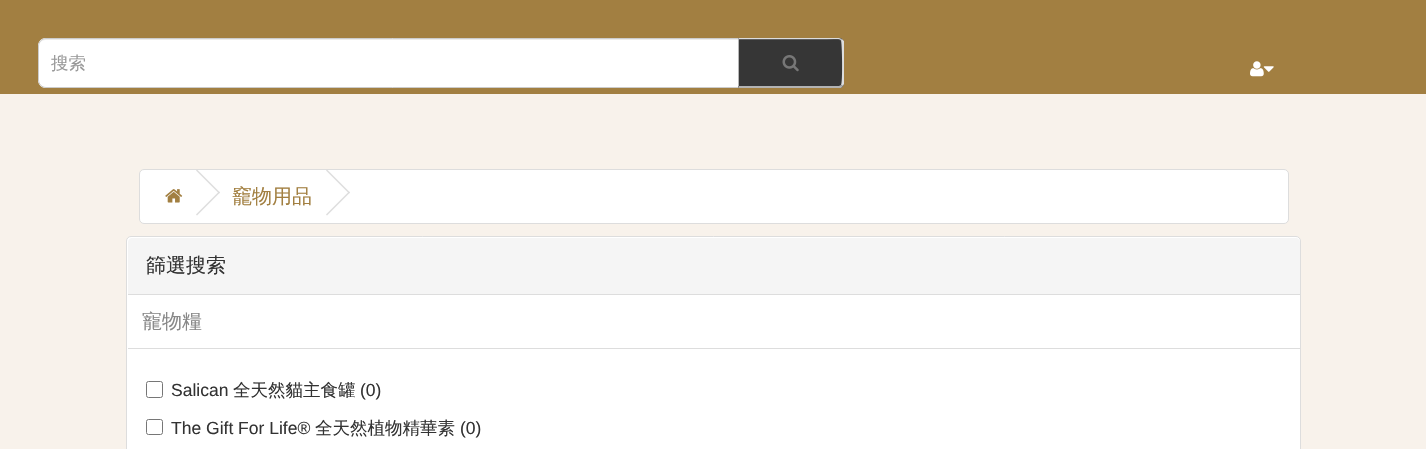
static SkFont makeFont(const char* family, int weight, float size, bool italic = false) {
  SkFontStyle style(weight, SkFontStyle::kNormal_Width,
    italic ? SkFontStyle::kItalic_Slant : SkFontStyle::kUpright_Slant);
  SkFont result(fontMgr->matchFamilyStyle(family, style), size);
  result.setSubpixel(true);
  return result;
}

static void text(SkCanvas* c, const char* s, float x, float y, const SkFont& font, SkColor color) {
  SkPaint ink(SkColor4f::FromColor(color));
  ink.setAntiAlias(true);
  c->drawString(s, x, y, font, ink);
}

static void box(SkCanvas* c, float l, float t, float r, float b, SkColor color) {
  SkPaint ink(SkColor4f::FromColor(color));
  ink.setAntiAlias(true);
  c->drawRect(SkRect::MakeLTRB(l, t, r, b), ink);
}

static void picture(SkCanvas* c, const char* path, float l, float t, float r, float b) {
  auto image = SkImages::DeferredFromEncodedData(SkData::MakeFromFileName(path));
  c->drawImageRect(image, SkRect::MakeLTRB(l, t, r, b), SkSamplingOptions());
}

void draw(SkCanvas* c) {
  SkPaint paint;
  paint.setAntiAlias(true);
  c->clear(0xfff8f2eb);
  box(c, 0, 0, 1426, 94, 0xffa27f41);
  paint.setColor(0xffffffff);
  c->drawPath(SkPathBuilder().moveTo(46, 38).lineTo(739, 38).lineTo(739, 88).lineTo(46, 88).cubicTo(41.5f, 88, 38, 84.5f, 38, 80).lineTo(38, 46).cubicTo(38, 41.5f, 41.5f, 38, 46, 38).close().detach(), paint);
  paint.setColor(0xffececec);
  c->drawPath(SkPathBuilder().moveTo(45, 40).lineTo(738, 40).lineTo(738, 39).lineTo(45, 39).cubicTo(41, 39, 39, 42, 39, 46).cubicTo(39, 43, 42, 40, 45, 40).close().detach(), paint);
  paint.setStyle(SkPaint::kStroke_Style);
  paint.setStrokeWidth(1);
  paint.setColor(0xffcccccc);
  c->drawPath(SkPathBuilder().moveTo(46, 38.5f).lineTo(738.5f, 38.5f).lineTo(738.5f, 87.5f).lineTo(46, 87.5f).cubicTo(42, 87.5f, 38.5f, 84, 38.5f, 80).lineTo(38.5f, 46).cubicTo(38.5f, 42, 42, 38.5f, 46, 38.5f).close().detach(), paint);
  SkFont face1 = makeFont("WenQuanYi Zen Hei", 500, 17.5f);
  text(c, "搜索", 51, 69, face1, 0xff999999);
  paint.setStyle(SkPaint::kFill_Style);
  paint.setColor(0xff363636);
  c->drawPath(SkPathBuilder().moveTo(738, 38).lineTo(839, 38).cubicTo(842, 38, 844, 40, 844, 43).lineTo(844, 83).cubicTo(844, 86, 842, 88, 839, 88).lineTo(738, 88).close().detach(), paint);
  paint.setColor(0xff5e5e5e);
  c->drawPath(SkPathBuilder().moveTo(739, 40).lineTo(822, 40).cubicTo(841, 40, 842, 36, 842, 51).lineTo(842, 85).cubicTo(843, 84, 843, 83, 843, 82).lineTo(843, 43).cubicTo(843, 41, 841, 39, 839, 39).lineTo(739, 39).close().detach(), paint);
  paint.setColor(0xffdddddd);
  c->drawPath(SkPathBuilder().moveTo(738, 38).lineTo(739, 39).lineTo(839, 39).lineTo(841, 40).lineTo(842, 39).lineTo(839, 38).close().detach(), paint);
  c->drawPath(SkPathBuilder().moveTo(842, 39).lineTo(844, 41).lineTo(844, 84).lineTo(843, 86).lineTo(841, 85).cubicTo(843, 83, 842, 41, 841, 40).close().detach(), paint);
  paint.setColor(0xffb3b3b3);
  c->drawPath(SkPathBuilder().moveTo(738, 88).lineTo(739, 86).lineTo(839, 86).lineTo(841, 85).lineTo(843, 86).lineTo(841, 88).close().detach(), paint);
  paint.setColor(0xffb7b7b7);
  c->drawPath(SkPathBuilder().moveTo(739, 39).lineTo(738, 38).lineTo(738, 87).lineTo(739, 86).close().detach(), paint);
  picture(c, "img_01.png", 782, 55, 799, 72);
  picture(c, "img_02.png", 1250, 61, 1264, 77);
  picture(c, "img_03.png", 1263, 66, 1274, 72);
  paint.setColor(0xffffffff);
  c->drawRoundRect(SkRect::MakeLTRB(139.5f, 169.5f, 1288.5f, 223.5f), 4.5f, 4.5f, paint);
  paint.setStyle(SkPaint::kStroke_Style);
  paint.setColor(0xffdddddd);
  c->drawRoundRect(SkRect::MakeLTRB(139.5f, 169.5f, 1288.5f, 223.5f), 4.5f, 4.5f, paint);
  picture(c, "img_04.png", 165, 189, 183, 203);
  paint.setStyle(SkPaint::kFill_Style);
  c->drawPath(SkPathBuilder().moveTo(196, 170.5f).lineTo(197, 169.5f).lineTo(220, 192.5f).lineTo(219, 193.5f).close().detach(), paint);
  c->drawPath(SkPathBuilder().moveTo(196, 214.5f).lineTo(219, 191.5f).lineTo(220, 192.5f).lineTo(197, 215.5f).close().detach(), paint);
  SkFont face2 = makeFont("WenQuanYi Zen Hei", 500, 20);
  text(c, "竉物用品", 232, 203, face2, 0xffa27f41);
  c->drawPath(SkPathBuilder().moveTo(326, 170.5f).lineTo(327, 169.5f).lineTo(350, 192.5f).lineTo(349, 193.5f).close().detach(), paint);
  c->drawPath(SkPathBuilder().moveTo(326, 214.5f).lineTo(349, 191.5f).lineTo(350, 192.5f).lineTo(327, 215.5f).close().detach(), paint);
  paint.setColor(0xffffffff);
  c->drawRoundRect(SkRect::MakeLTRB(126.5f, 236.5f, 1300.5f, 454.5f), 4.5f, 4.5f, paint);
  paint.setStyle(SkPaint::kStroke_Style);
  paint.setColor(0xffdddddd);
  c->drawRoundRect(SkRect::MakeLTRB(126.5f, 236.5f, 1300.5f, 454.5f), 4.5f, 4.5f, paint);
  paint.setStyle(SkPaint::kFill_Style);
  paint.setColor(0xfff5f5f5);
  c->drawPath(SkPathBuilder().moveTo(132, 238).lineTo(1296, 238).cubicTo(1298, 238, 1300, 240, 1300, 242).lineTo(1300, 295).lineTo(128, 295).lineTo(128, 242).cubicTo(128, 240, 130, 238, 132, 238).close().detach(), paint);
  box(c, 128, 294, 1300, 295, 0xffdddddd);
  text(c, "篩選搜索", 146, 272, face2, 0xff333333);
  box(c, 128, 348, 1300, 349, 0xffdddddd);
  text(c, "寵物糧", 142, 328, face2, 0xff888888);
  paint.setStyle(SkPaint::kStroke_Style);
  paint.setColor(0xff767676);
  c->drawRoundRect(SkRect::MakeLTRB(146.5f, 381.5f, 162.5f, 397.5f), 2, 2, paint);
  SkFont face3 = makeFont("Liberation Sans", 400, 17.5f);
  text(c, "Salican", 171, 396, face3, 0xff333333);
  text(c, "全天然貓主食罐", 233, 396, face1, 0xff333333);
  text(c, "(0)", 360, 396, face3, 0xff333333);
  c->drawRoundRect(SkRect::MakeLTRB(146.5f, 419.5f, 162.5f, 434.5f), 2, 2, paint);
  text(c, "The Gift For Life®", 171, 434, face3, 0xff333333);
  text(c, "全天然植物精華素", 315, 434, face1, 0xff333333);
  text(c, "(0)", 460, 434, face3, 0xff333333);
}
